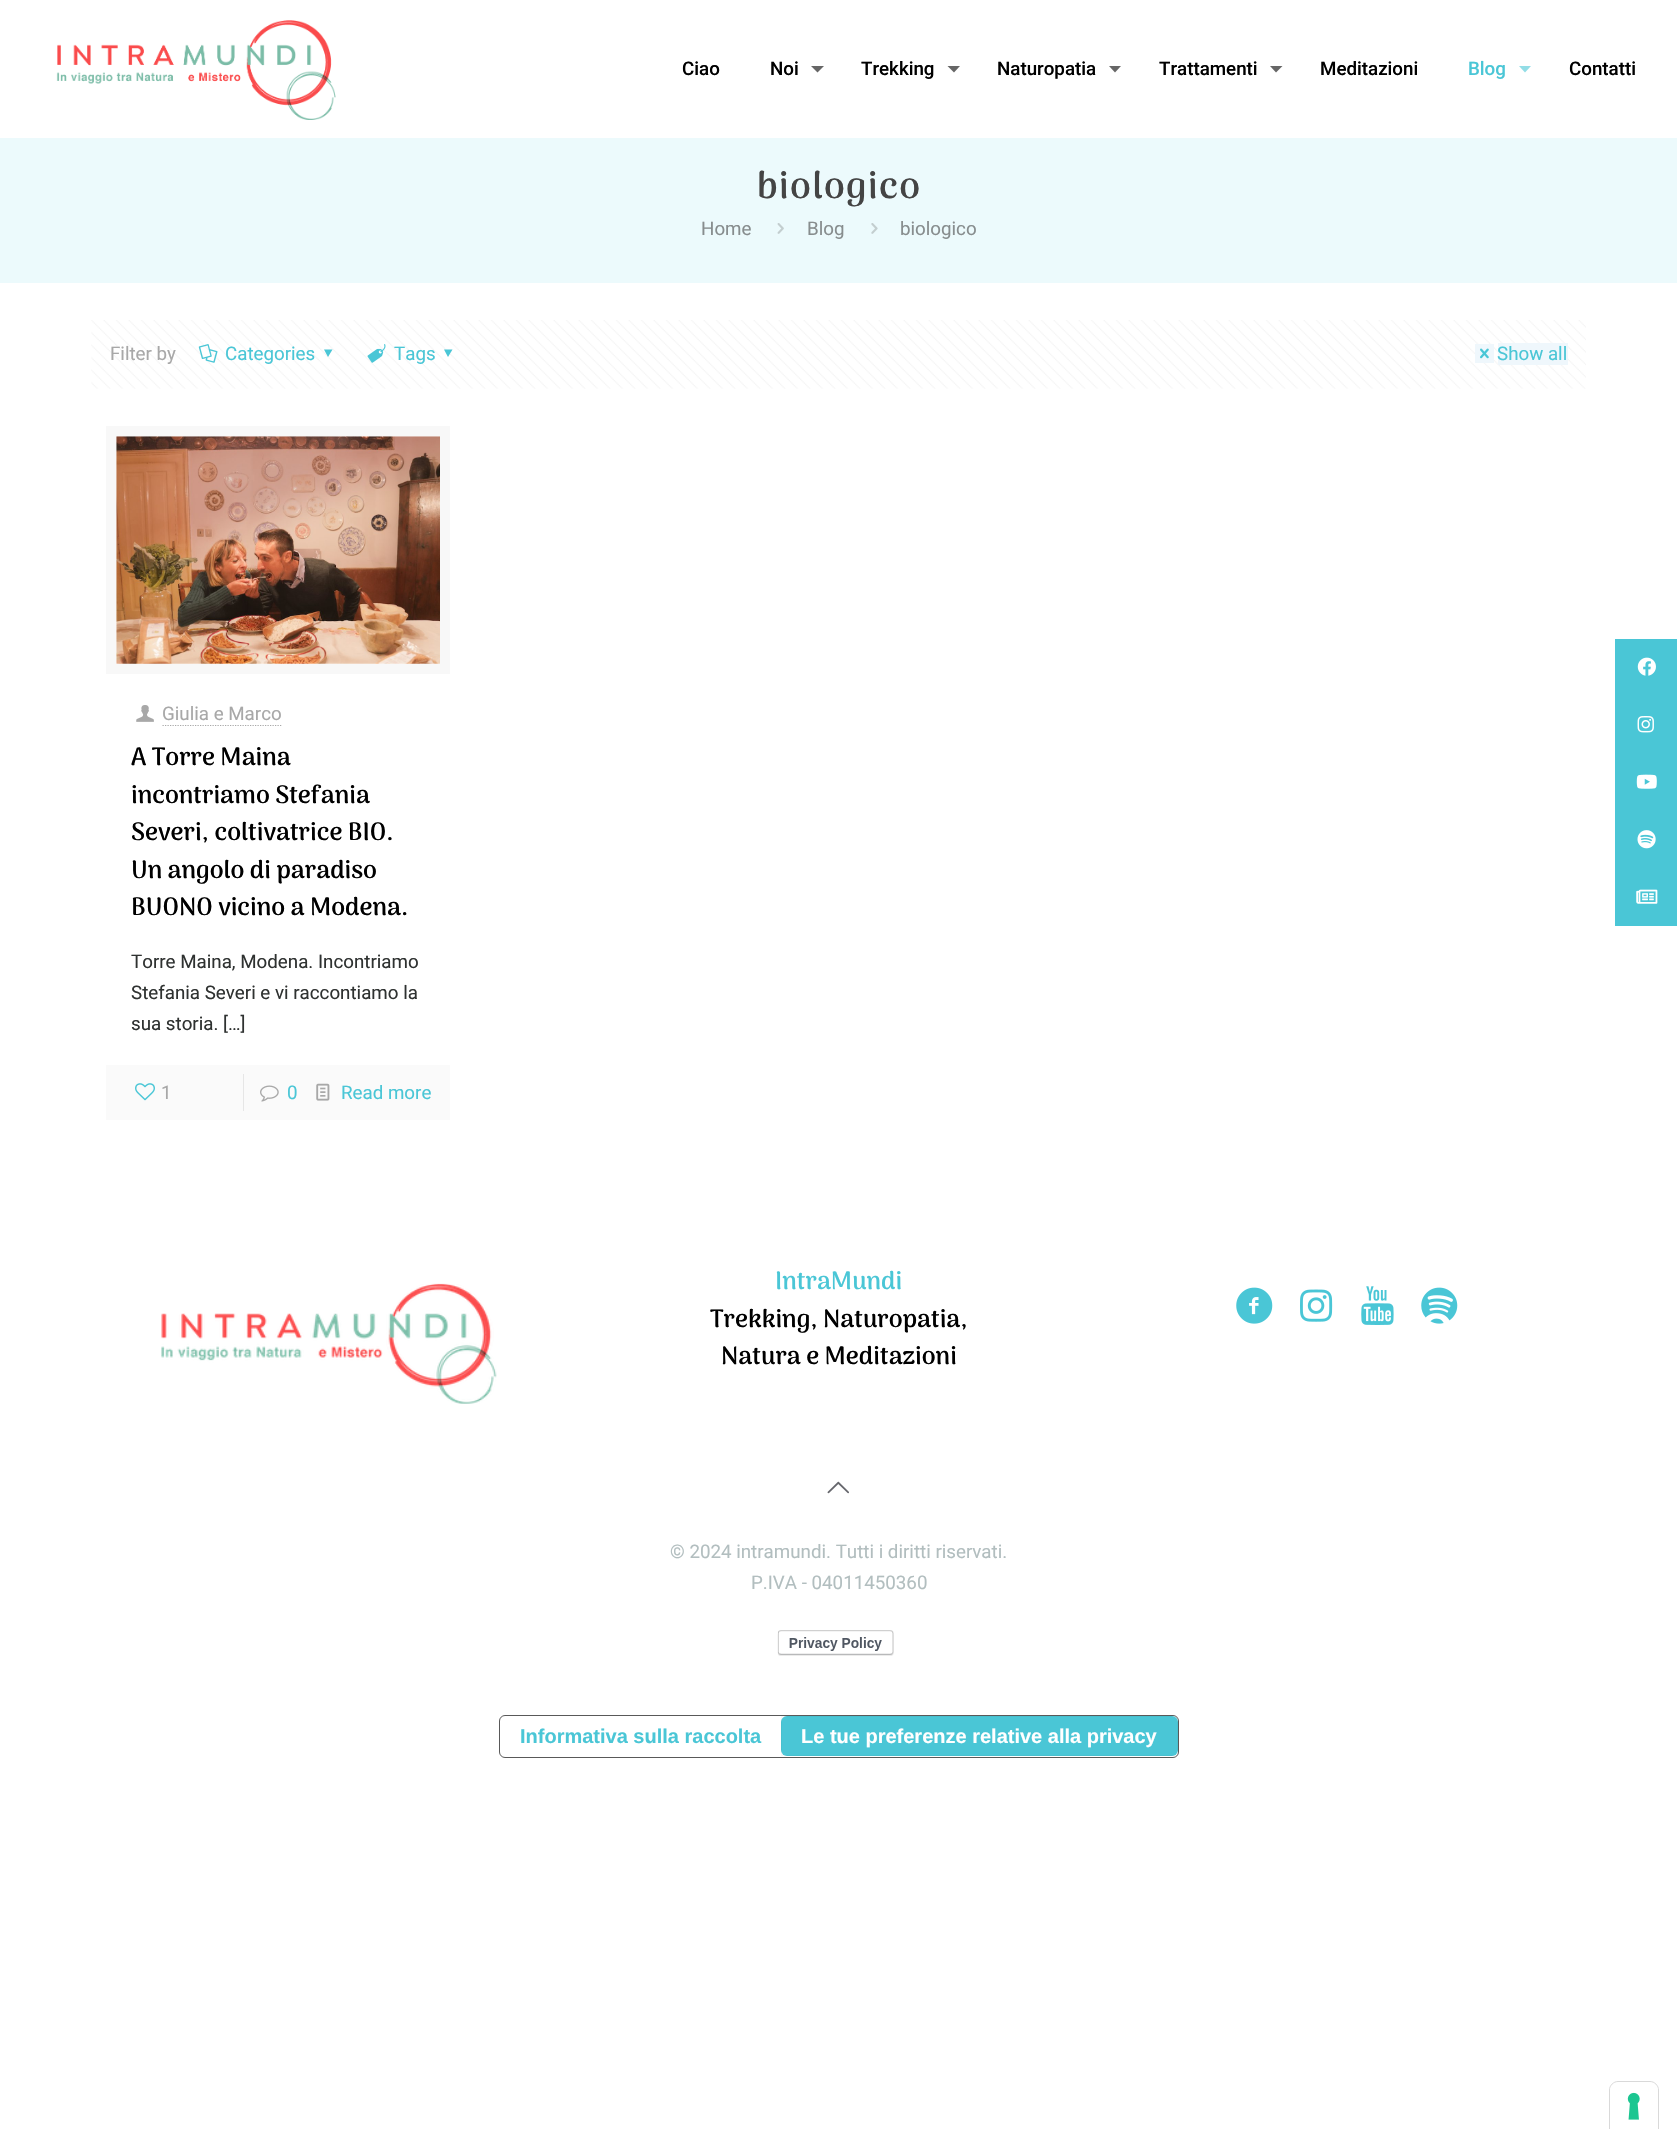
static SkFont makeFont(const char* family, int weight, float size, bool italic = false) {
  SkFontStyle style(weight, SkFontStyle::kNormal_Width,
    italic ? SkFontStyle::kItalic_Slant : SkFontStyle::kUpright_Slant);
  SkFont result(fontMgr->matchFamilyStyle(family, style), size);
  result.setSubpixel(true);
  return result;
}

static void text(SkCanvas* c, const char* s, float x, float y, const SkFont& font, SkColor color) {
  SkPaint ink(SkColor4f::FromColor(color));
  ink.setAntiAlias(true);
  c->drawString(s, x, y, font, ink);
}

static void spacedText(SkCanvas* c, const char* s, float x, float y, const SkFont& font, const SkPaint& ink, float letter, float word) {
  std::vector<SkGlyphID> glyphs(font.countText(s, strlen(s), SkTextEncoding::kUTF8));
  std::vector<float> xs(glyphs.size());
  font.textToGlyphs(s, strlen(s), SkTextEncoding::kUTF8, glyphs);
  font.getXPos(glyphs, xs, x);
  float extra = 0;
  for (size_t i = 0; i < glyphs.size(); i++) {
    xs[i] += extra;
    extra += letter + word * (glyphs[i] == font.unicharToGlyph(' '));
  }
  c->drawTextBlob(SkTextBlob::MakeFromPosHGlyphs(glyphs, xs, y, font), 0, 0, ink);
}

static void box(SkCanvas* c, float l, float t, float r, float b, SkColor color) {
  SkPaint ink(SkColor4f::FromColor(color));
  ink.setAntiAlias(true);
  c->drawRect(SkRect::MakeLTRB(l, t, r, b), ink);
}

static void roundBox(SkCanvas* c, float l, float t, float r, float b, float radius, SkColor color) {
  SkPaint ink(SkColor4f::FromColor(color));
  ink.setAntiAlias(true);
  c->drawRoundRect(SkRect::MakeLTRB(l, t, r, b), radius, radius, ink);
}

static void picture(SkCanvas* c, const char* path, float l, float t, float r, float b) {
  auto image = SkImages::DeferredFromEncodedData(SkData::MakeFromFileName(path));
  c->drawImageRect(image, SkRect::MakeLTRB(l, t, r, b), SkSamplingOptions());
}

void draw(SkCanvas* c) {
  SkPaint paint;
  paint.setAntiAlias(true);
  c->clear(0xffffffff);
  picture(c, "img_01.png", 56, 20, 336, 120);
  SkFont face1 = makeFont("Roboto", 500, 18.75f);
  text(c, "Ciao", 682, 75, face1, 0xff000000);
  text(c, "Noi", 770, 75, face1, 0xff000000);
  paint.setColor(0xff666666);
  c->drawPath(SkPathBuilder().moveTo(811, 66).lineTo(824, 66).lineTo(817.5f, 72.5f).close().detach(), paint);
  text(c, "Trekking", 861, 75, face1, 0xff000000);
  c->drawPath(SkPathBuilder().moveTo(947.5f, 66).lineTo(960, 66).lineTo(954, 72.5f).close().detach(), paint);
  text(c, "Naturopatia", 997, 75, face1, 0xff000000);
  c->drawPath(SkPathBuilder().moveTo(1109, 66).lineTo(1121, 66).lineTo(1115, 72.5f).close().detach(), paint);
  text(c, "Trattamenti", 1159, 75, face1, 0xff000000);
  c->drawPath(SkPathBuilder().moveTo(1270, 66).lineTo(1282.5f, 66).lineTo(1276, 72.5f).close().detach(), paint);
  text(c, "Meditazioni", 1320, 75, face1, 0xff000000);
  text(c, "Blog", 1468, 75, face1, 0xff4ac6d6);
  paint.setColor(0xff92dde6);
  c->drawPath(SkPathBuilder().moveTo(1519, 66).lineTo(1531, 66).lineTo(1525, 72.5f).close().detach(), paint);
  text(c, "Contatti", 1569, 75, face1, 0xff000000);
  box(c, 0, 138, 1677, 283, 0xffecfafc);
  SkFont face2 = makeFont("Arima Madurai", 700, 37.5f);
  paint.setColor(0xff444444);
  spacedText(c, "biologico", 757, 198, face2, paint, 1.25f, 0);
  SkFont face3 = makeFont("Roboto", 400, 18.75f);
  text(c, "Home", 701, 235, face3, 0xff878d8e);
  picture(c, "img_02.png", 777, 223, 784, 234);
  text(c, "Blog", 807, 235, face3, 0xff878d8e);
  picture(c, "img_03.png", 871, 223, 878, 234);
  text(c, "biologico", 900, 235, face3, 0xff878d8e);
  picture(c, "img_04.png", 91, 320, 1586, 389);
  text(c, "Filter by", 110, 360, face3, 0xffa8a8a8);
  picture(c, "img_05.png", 198, 344, 218, 363);
  text(c, "Categories", 225, 360, face3, 0xff4ac6d6);
  paint.setColor(0xff4ac6d6);
  c->drawPath(SkPathBuilder().moveTo(332.5f, 349.5f).lineTo(328, 357).lineTo(324, 349.5f).close().detach(), paint);
  picture(c, "img_06.png", 367, 344, 386, 363);
  text(c, "Tags", 394, 360, face3, 0xff4ac6d6);
  c->drawPath(SkPathBuilder().moveTo(452.5f, 349.5f).lineTo(448, 357).lineTo(444, 349.5f).close().detach(), paint);
  box(c, 1475, 344, 1494, 363, 0xffeff7fc);
  box(c, 1498, 343, 1568, 365, 0xffeff7fc);
  picture(c, "img_07.png", 1480, 348, 1489, 359);
  text(c, "Show all", 1497, 360, face3, 0xff4ac6d6);
  paint.setStyle(SkPaint::kStroke_Style);
  paint.setStrokeWidth(10);
  paint.setColor(0xfff8f8f8);
  c->drawRect(SkRect::MakeLTRB(111, 431, 445, 669), paint);
  picture(c, "img_08.png", 116, 436, 440, 664);
  picture(c, "img_09.png", 136, 705, 154, 722);
  text(c, "Giulia e Marco", 162, 720, face3, 0xffa8a8a8);
  paint.setStrokeWidth(1.2f);
  paint.setColor(0xffa8a8a8);
  paint.setPathEffect(SkDashPathEffect::Make({{1.25f, 1.25f}}, 0));
  c->drawPath(SkPathBuilder().moveTo(162.5f, 725.5f).lineTo(282.5f, 725.5f).detach(), paint);
  paint.setPathEffect(nullptr);
  SkFont face4 = makeFont("Arima Madurai", 700, 25);
  text(c, "A Torre Maina", 131, 765, face4, 0xff000000);
  text(c, "incontriamo Stefania", 131, 803, face4, 0xff000000);
  text(c, "Severi, coltivatrice BIO.", 131, 840, face4, 0xff000000);
  text(c, "Un angolo di paradiso", 131, 878, face4, 0xff000000);
  text(c, "BUONO vicino a Modena.", 131, 915, face4, 0xff000000);
  text(c, "Torre Maina, Modena. Incontriamo", 131, 968, face3, 0xff2f3231);
  text(c, "Stefania Severi e vi raccontiamo la", 131, 999, face3, 0xff2f3231);
  text(c, "sua storia. […]", 131, 1030, face3, 0xff2f3231);
  box(c, 106, 1065, 450, 1120, 0xfffafafa);
  picture(c, "img_10.png", 135, 1083, 155, 1101);
  text(c, "1", 161, 1099, face3, 0xffa8a8a8);
  box(c, 243, 1074, 244, 1111, 0xffe6e6e6);
  picture(c, "img_11.png", 260, 1085, 279, 1102);
  text(c, "0", 287, 1099, face3, 0xff4ac6d6);
  picture(c, "img_12.png", 316, 1083, 330, 1101);
  text(c, "Read more", 341, 1099, face3, 0xff4ac6d6);
  picture(c, "img_13.png", 161, 1283, 497, 1404);
  text(c, "IntraMundi", 775, 1289, face4, 0xff4ac6d6);
  text(c, "Trekking, Naturopatia,", 710, 1327, face4, 0xff000000);
  text(c, "Natura e Meditazioni", 721, 1364, face4, 0xff000000);
  picture(c, "img_14.png", 1236, 1287, 1273, 1324);
  picture(c, "img_15.png", 1300, 1289, 1333, 1322);
  picture(c, "img_16.png", 1361, 1286, 1394, 1325);
  picture(c, "img_17.png", 1421, 1287, 1458, 1324);
  picture(c, "img_18.png", 827, 1481, 849, 1494);
  text(c, "© 2024 intramundi. Tutti i diritti riservati.", 670, 1558, face3, 0xffb2bebf);
  text(c, "P.IVA - 04011450360", 751, 1589, face3, 0xffb2bebf);
  picture(c, "img_19.png", 777, 1630, 894, 1656);
  box(c, 1615, 639, 1677, 926, 0xff4ac6d6);
  picture(c, "img_20.png", 1637, 657, 1656, 676);
  picture(c, "img_21.png", 1637, 716, 1654, 733);
  picture(c, "img_22.png", 1636, 774, 1657, 789);
  picture(c, "img_23.png", 1637, 830, 1656, 849);
  picture(c, "img_24.png", 1636, 889, 1658, 904);
  paint.setStrokeWidth(1);
  paint.setColor(0xff595959);
  c->drawRoundRect(SkRect::MakeLTRB(499.5f, 1715.5f, 1178.5f, 1757.5f), 5.5f, 5.5f, paint);
  SkFont face5 = makeFont("Liberation Sans", 700, 20);
  text(c, "Informativa sulla raccolta", 520, 1743, face5, 0xff4ac6d6);
  c->save();
  c->clipPath(SkPathBuilder().moveTo(505, 1716).lineTo(1173, 1716).cubicTo(1176, 1716, 1178, 1718, 1178, 1721).lineTo(1178, 1751).cubicTo(1178, 1754, 1176, 1756, 1173, 1756).lineTo(505, 1756).cubicTo(502, 1756, 500, 1754, 500, 1751).lineTo(500, 1721).cubicTo(500, 1718, 502, 1716, 505, 1716).close().detach(), true);
  roundBox(c, 781, 1716, 1178, 1756, 6, 0xff4ac6d6);
  c->restore();
  paint.setColor(0x08000000);
  c->drawRect(SkRect::MakeLTRB(781.5f, 1716.5f, 1177.5f, 1755.5f), paint);
  text(c, "Le tue preferenze relative alla privacy", 801, 1743, face5, 0xffffffff);
  paint.setColor(0xffd9d9d9);
  c->drawPath(SkPathBuilder().moveTo(1618, 2081.5f).lineTo(1650, 2081.5f).cubicTo(1654.5f, 2081.5f, 1658.5f, 2085.5f, 1658.5f, 2090).lineTo(1658.5f, 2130.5f).lineTo(1609.5f, 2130.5f).lineTo(1609.5f, 2090).cubicTo(1609.5f, 2085.5f, 1613.5f, 2081.5f, 1618, 2081.5f).close().detach(), paint);
  paint.setStyle(SkPaint::kFill_Style);
  paint.setColor(0xffffffff);
  c->drawPath(SkPathBuilder().moveTo(1618, 2083).lineTo(1650, 2083).cubicTo(1654.5f, 2083, 1658, 2086.5f, 1658, 2091).lineTo(1658, 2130).lineTo(1610, 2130).lineTo(1610, 2091).cubicTo(1610, 2086.5f, 1613.5f, 2083, 1618, 2083).close().detach(), paint);
  picture(c, "img_25.png", 1627, 2092, 1640, 2120);
}
